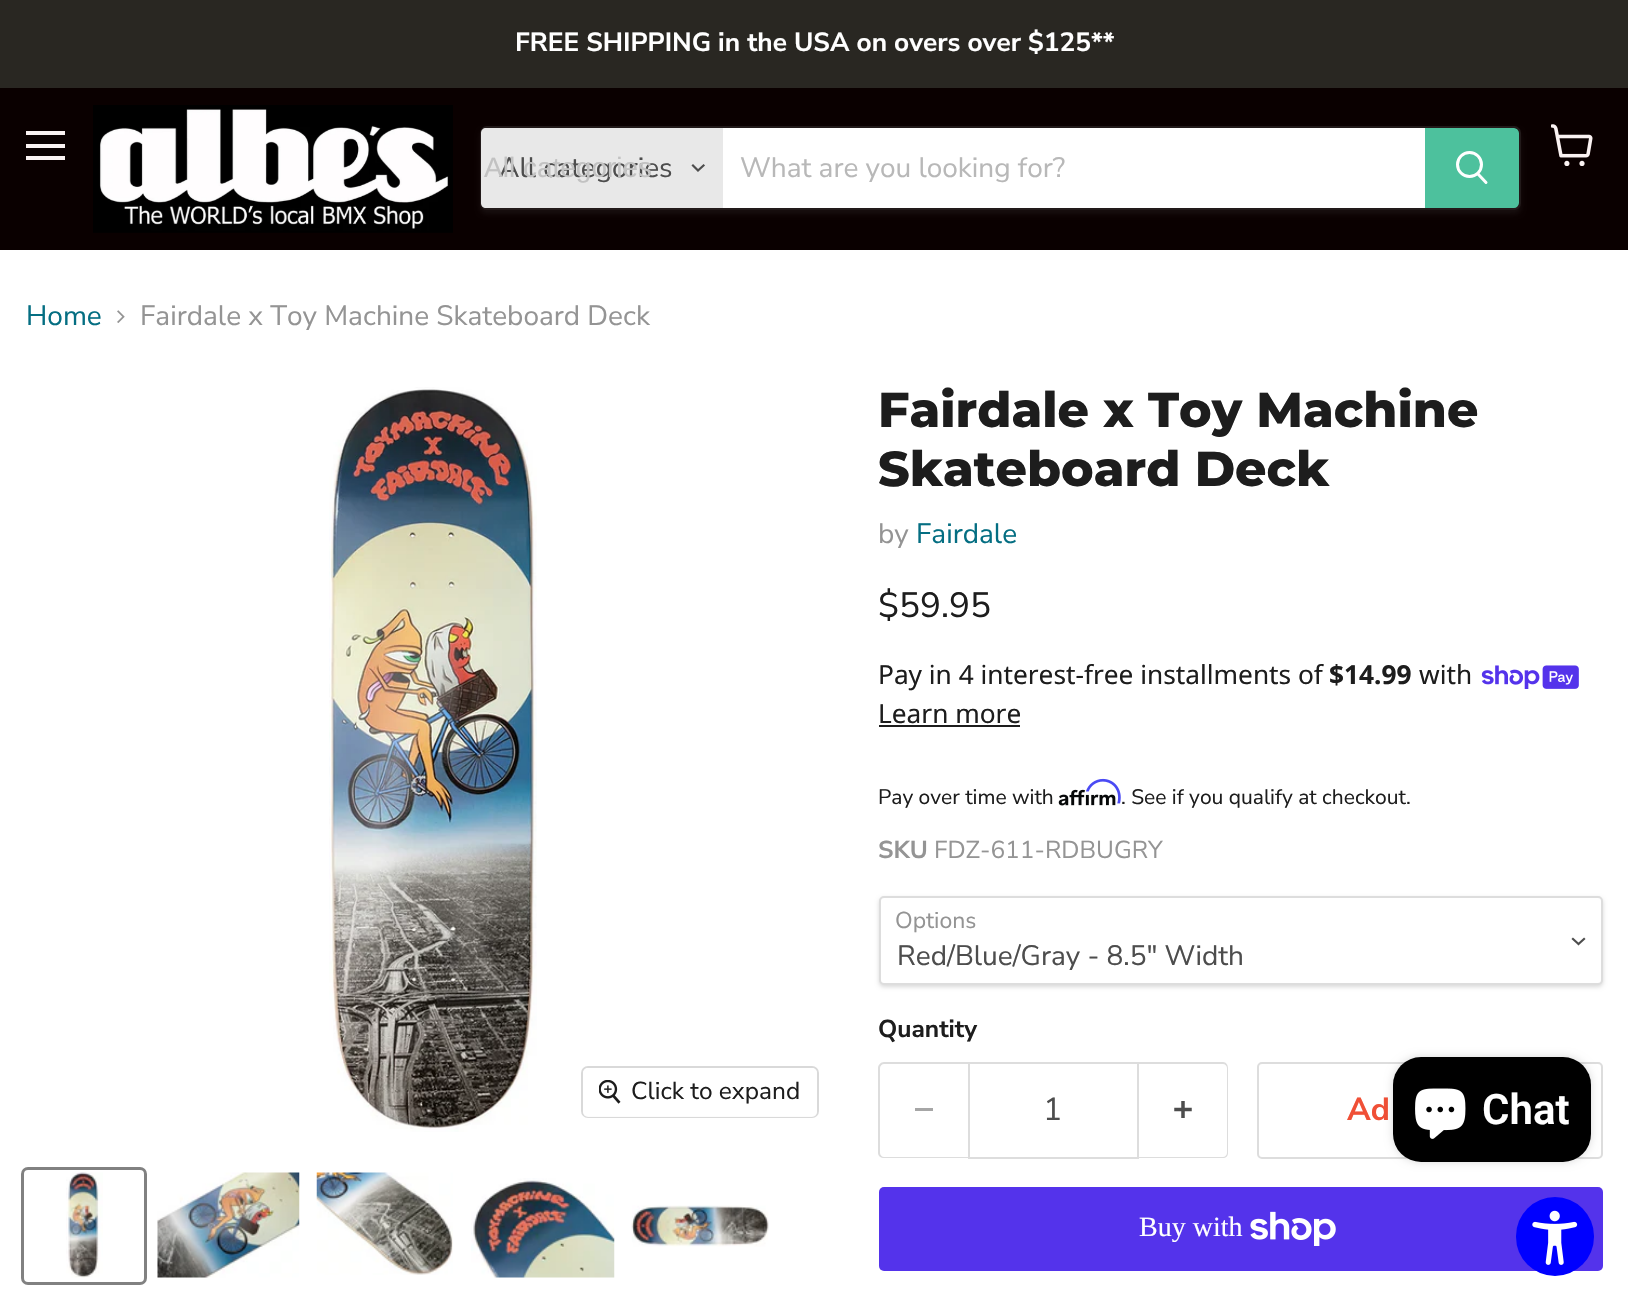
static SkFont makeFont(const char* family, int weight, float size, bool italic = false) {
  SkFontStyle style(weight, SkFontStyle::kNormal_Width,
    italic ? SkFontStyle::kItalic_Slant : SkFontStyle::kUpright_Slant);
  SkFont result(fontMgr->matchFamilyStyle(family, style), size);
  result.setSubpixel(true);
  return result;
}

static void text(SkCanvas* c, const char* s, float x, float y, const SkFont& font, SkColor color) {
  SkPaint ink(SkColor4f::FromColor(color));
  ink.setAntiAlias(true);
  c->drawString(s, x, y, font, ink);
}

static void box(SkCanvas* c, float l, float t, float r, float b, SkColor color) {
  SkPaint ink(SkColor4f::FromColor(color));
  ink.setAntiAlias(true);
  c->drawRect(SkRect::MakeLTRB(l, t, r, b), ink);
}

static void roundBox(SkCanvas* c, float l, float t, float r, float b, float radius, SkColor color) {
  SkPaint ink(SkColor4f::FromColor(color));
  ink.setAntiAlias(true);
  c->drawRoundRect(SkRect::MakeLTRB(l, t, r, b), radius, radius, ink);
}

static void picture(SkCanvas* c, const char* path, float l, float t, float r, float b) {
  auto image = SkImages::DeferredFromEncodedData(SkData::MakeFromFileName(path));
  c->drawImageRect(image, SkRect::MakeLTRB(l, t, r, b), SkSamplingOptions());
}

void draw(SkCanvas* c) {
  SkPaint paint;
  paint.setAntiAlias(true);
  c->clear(0xffffffff);
  box(c, 0, 0, 1628, 88, 0xff292722);
  SkFont face1 = makeFont("Nunito Sans", 700, 26.25f);
  text(c, "FREE SHIPPING in the USA on overs over $125**", 515, 51, face1, 0xffffffff);
  box(c, 0, 88, 1628, 250, 0xff0a0000);
  box(c, 26, 131, 65, 135, 0xfffaf2f2);
  box(c, 26, 144, 65, 148, 0xfffaf2f2);
  box(c, 26, 156, 65, 160, 0xfffaf2f2);
  picture(c, "img_01.png", 1551, 124, 1593, 166);
  picture(c, "img_02.png", 93, 105, 453, 233);
  c->save();
  c->clipPath(SkPathBuilder(SkPathFillType::kEvenOdd).moveTo(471, 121).lineTo(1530, 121).lineTo(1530, 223).lineTo(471, 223).close().moveTo(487, 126).lineTo(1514, 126).cubicTo(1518, 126, 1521, 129, 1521, 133).lineTo(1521, 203).cubicTo(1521, 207, 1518, 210, 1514, 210).lineTo(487, 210).cubicTo(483, 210, 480, 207, 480, 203).lineTo(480, 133).cubicTo(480, 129, 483, 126, 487, 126).close().detach(), true);
  paint.setColor(0x1c808080);
  paint.setMaskFilter(SkMaskFilter::MakeBlur(kNormal_SkBlurStyle, 2.5f));
  c->drawRoundRect(SkRect::MakeLTRB(480, 130, 1521, 214), 7, 7, paint);
  paint.setMaskFilter(nullptr);
  c->restore();
  paint.setStyle(SkPaint::kStroke_Style);
  paint.setStrokeWidth(2);
  paint.setColor(0x33808080);
  c->drawRoundRect(SkRect::MakeLTRB(481, 127, 1520, 209), 6, 6, paint);
  paint.setStyle(SkPaint::kFill_Style);
  paint.setColor(0xffe8e8e8);
  c->drawPath(SkPathBuilder().moveTo(486, 128).lineTo(723, 128).lineTo(723, 208).lineTo(486, 208).cubicTo(483, 208, 481, 206, 481, 203).lineTo(481, 133).cubicTo(481, 130, 483, 128, 486, 128).close().detach(), paint);
  SkFont face2 = makeFont("Nunito Sans", 400, 28);
  text(c, "All categories", 499, 177, face2, 0xff4d4d4d);
  SkFont face3 = makeFont("Liberation Sans", 400, 28);
  text(c, "All categories", 484, 177, face3, 0xffc2c2c2);
  paint.setStyle(SkPaint::kStroke_Style);
  paint.setStrokeWidth(2.2f);
  paint.setStrokeCap(SkPaint::kSquare_Cap);
  paint.setColor(0xff4d4d4d);
  c->drawPath(SkPathBuilder().moveTo(698, 170.5f).lineTo(703.5f, 165.5f).moveTo(698, 170.5f).lineTo(693, 165.5f).detach(), paint);
  box(c, 723, 128, 1425, 208, 0xffffffff);
  text(c, "What are you looking for?", 740, 177, face2, 0xffb8b8b8);
  paint.setStyle(SkPaint::kFill_Style);
  paint.setColor(0xff4dc19d);
  c->drawPath(SkPathBuilder().moveTo(1426, 129).lineTo(1514, 129).cubicTo(1516, 129, 1518, 131, 1518, 133).lineTo(1518, 203).cubicTo(1518, 205, 1516, 207, 1514, 207).lineTo(1426, 207).close().detach(), paint);
  paint.setStyle(SkPaint::kStroke_Style);
  paint.setStrokeWidth(2);
  paint.setStrokeCap(SkPaint::kButt_Cap);
  c->drawPath(SkPathBuilder().moveTo(1426, 129).lineTo(1514, 129).cubicTo(1516, 129, 1518, 131, 1518, 133).lineTo(1518, 203).cubicTo(1518, 205, 1516, 207, 1514, 207).lineTo(1426, 207).close().detach(), paint);
  paint.setStrokeWidth(3);
  paint.setStrokeCap(SkPaint::kRound_Cap);
  paint.setColor(0xffffffff);
  c->drawPath(SkPathBuilder().moveTo(1486, 182.5f).lineTo(1478, 174).detach(), paint);
  paint.setStrokeCap(SkPaint::kButt_Cap);
  c->drawCircle(1469.5f, 164.5f, 12, paint);
  text(c, "Home", 26, 325, face2, 0xff046e82);
  picture(c, "img_03.png", 117, 310, 125, 323);
  text(c, "Fairdale x Toy Machine Skateboard Deck", 140, 325, face2, 0xff949494);
  picture(c, "img_04.png", 329, 387, 537, 1132);
  paint.setStrokeWidth(2);
  paint.setColor(0xffd9d9d9);
  c->drawRoundRect(SkRect::MakeLTRB(582, 1067, 818, 1117), 6, 6, paint);
  roundBox(c, 583, 1068, 817, 1117, 5, 0xe6ffffff);
  picture(c, "img_05.png", 599, 1080, 621, 1104);
  SkFont face4 = makeFont("Nunito Sans", 400, 24.5f);
  text(c, "Click to expand", 631, 1099, face4, 0xff1d1d1d);
  paint.setStrokeWidth(3);
  paint.setColor(0xff818181);
  c->drawRoundRect(SkRect::MakeLTRB(22.5f, 1168.5f, 145.5f, 1283.5f), 5.5f, 5.5f, paint);
  picture(c, "img_06.png", 66, 1172, 103, 1278);
  picture(c, "img_07.png", 157, 1172, 300, 1278);
  picture(c, "img_08.png", 316, 1172, 453, 1275);
  picture(c, "img_09.png", 471, 1178, 615, 1278);
  picture(c, "img_10.png", 631, 1205, 769, 1247);
  SkFont face5 = makeFont("Montserrat", 800, 49);
  text(c, "Fairdale x Toy Machine", 878, 427, face5, 0xff1d1d1d);
  text(c, "Skateboard Deck", 878, 486, face5, 0xff1d1d1d);
  text(c, "by", 878, 543, face2, 0xff949494);
  text(c, "Fairdale", 916, 543, face2, 0xff046e82);
  SkFont face6 = makeFont("Nunito Sans", 400, 35);
  text(c, "$59.95", 878, 617, face6, 0xff1d1d1d);
  SkFont face7 = makeFont("Noto Sans", 400, 26.25f);
  text(c, "Pay in 4 interest-free installments of", 878, 684, face7, 0xff1d1d1d);
  SkFont face8 = makeFont("Noto Sans", 700, 26.25f);
  text(c, "$14.99", 1329, 684, face8, 0xff1d1d1d);
  text(c, "with", 1419, 684, face7, 0xff1d1d1d);
  picture(c, "img_11.png", 1481, 665, 1579, 689);
  text(c, "Learn more", 878, 723, face7, 0xff1d1d1d);
  box(c, 879, 725, 1020, 727, 0xff1d1d1d);
  SkFont face9 = makeFont("Nunito Sans", 400, 21);
  text(c, "Pay over time with", 878, 804, face9, 0xff1d1d1d);
  picture(c, "img_13.png", 1058, 789, 1116, 806);
  picture(c, "img_12.png", 1086, 778, 1121, 804);
  text(c, ". See if you qualify at checkout.", 1121, 804, face9, 0xff1d1d1d);
  SkFont face10 = makeFont("Nunito Sans", 700, 24.5f);
  text(c, "SKU", 878, 858, face10, 0xff949494);
  text(c, "FDZ-611-RDBUGRY", 934, 858, face4, 0xff949494);
  paint.setStyle(SkPaint::kFill_Style);
  paint.setColor(0x26000000);
  paint.setMaskFilter(SkMaskFilter::MakeBlur(kNormal_SkBlurStyle, 2));
  c->drawRoundRect(SkRect::MakeLTRB(879, 898, 1603, 987), 5, 5, paint);
  paint.setMaskFilter(nullptr);
  paint.setColor(0xffffffff);
  c->drawRoundRect(SkRect::MakeLTRB(880, 897, 1602, 984), 4, 4, paint);
  paint.setStyle(SkPaint::kStroke_Style);
  paint.setStrokeWidth(2);
  paint.setColor(0xffdddddd);
  c->drawRoundRect(SkRect::MakeLTRB(880, 897, 1602, 984), 4, 4, paint);
  SkFont face11 = makeFont("Nunito Sans", 400, 23);
  text(c, "Options", 895, 928, face11, 0xff949494);
  paint.setStrokeWidth(2.2f);
  paint.setStrokeCap(SkPaint::kSquare_Cap);
  paint.setColor(0xff4d4d4d);
  c->drawPath(SkPathBuilder().moveTo(1578.5f, 944).lineTo(1584, 939).moveTo(1578.5f, 944).lineTo(1573, 939).detach(), paint);
  text(c, "Red/Blue/Gray - 8.5\" Width", 897, 965, face2, 0xff4d4d4d);
  text(c, "Quantity", 878, 1037, face10, 0xff1d1d1d);
  paint.setStyle(SkPaint::kFill_Style);
  paint.setColor(0xffdddddd);
  c->drawPath(SkPathBuilder(SkPathFillType::kEvenOdd).moveTo(884, 1062).lineTo(968, 1062).lineTo(968, 1158).lineTo(884, 1158).cubicTo(881, 1158, 878, 1156, 878, 1153).lineTo(878, 1068).cubicTo(878, 1065, 881, 1062, 884, 1062).close().moveTo(884, 1064).lineTo(968, 1064).lineTo(968, 1157).lineTo(884, 1157).cubicTo(882, 1157, 880, 1155, 880, 1153).lineTo(880, 1068).cubicTo(880, 1066, 882, 1064, 884, 1064).close().detach(), paint);
  box(c, 915, 1108, 933, 1111, 0xffa6a6a6);
  paint.setStyle(SkPaint::kStroke_Style);
  paint.setStrokeWidth(2);
  paint.setStrokeCap(SkPaint::kButt_Cap);
  c->drawRect(SkRect::MakeLTRB(969, 1063, 1138, 1158), paint);
  SkFont face12 = makeFont("Nunito Sans", 400, 32);
  text(c, "1", 1043, 1120, face12, 0xff4d4d4d);
  paint.setStyle(SkPaint::kFill_Style);
  c->drawPath(SkPathBuilder(SkPathFillType::kEvenOdd).moveTo(1139, 1062).lineTo(1223, 1062).cubicTo(1226, 1062, 1228, 1065, 1228, 1068).lineTo(1228, 1153).cubicTo(1228, 1156, 1226, 1158, 1223, 1158).lineTo(1139, 1158).close().moveTo(1139, 1064).lineTo(1223, 1064).cubicTo(1225, 1064, 1227, 1066, 1227, 1068).lineTo(1227, 1153).cubicTo(1227, 1155, 1225, 1157, 1223, 1157).lineTo(1139, 1157).close().detach(), paint);
  picture(c, "img_14.png", 1174, 1101, 1192, 1118);
  paint.setStyle(SkPaint::kStroke_Style);
  c->drawRoundRect(SkRect::MakeLTRB(1258, 1063, 1602, 1158), 4, 4, paint);
  SkFont face13 = makeFont("Nunito Sans", 700, 32);
  text(c, "Ad", 1347, 1120, face13, 0xfff04f36);
  roundBox(c, 879, 1187, 1603, 1271, 5, 0xff5433eb);
  SkFont face14 = makeFont("Liberation Serif", 400, 28);
  text(c, "Buy with", 1139, 1236, face14, 0xffffffff);
  picture(c, "img_15.png", 1250, 1211, 1336, 1246);
  paint.setStyle(SkPaint::kFill_Style);
  paint.setColor(0x26000000);
  paint.setMaskFilter(SkMaskFilter::MakeBlur(kNormal_SkBlurStyle, 4.5f));
  c->drawRoundRect(SkRect::MakeLTRB(1393, 1057, 1591, 1162), 28, 28, paint);
  paint.setMaskFilter(nullptr);
  roundBox(c, 1393, 1057, 1591, 1162, 28, 0xff000000);
  picture(c, "img_16.png", 1415, 1088, 1466, 1139);
  SkFont face15 = makeFont("Roboto", 600, 42);
  text(c, "Chat", 1482, 1124, face15, 0xffffffff);
  roundBox(c, 1516, 1197, 1594, 1276, 39, 0xff0000ff);
  picture(c, "img_17.png", 1532, 1210, 1578, 1265);
}
